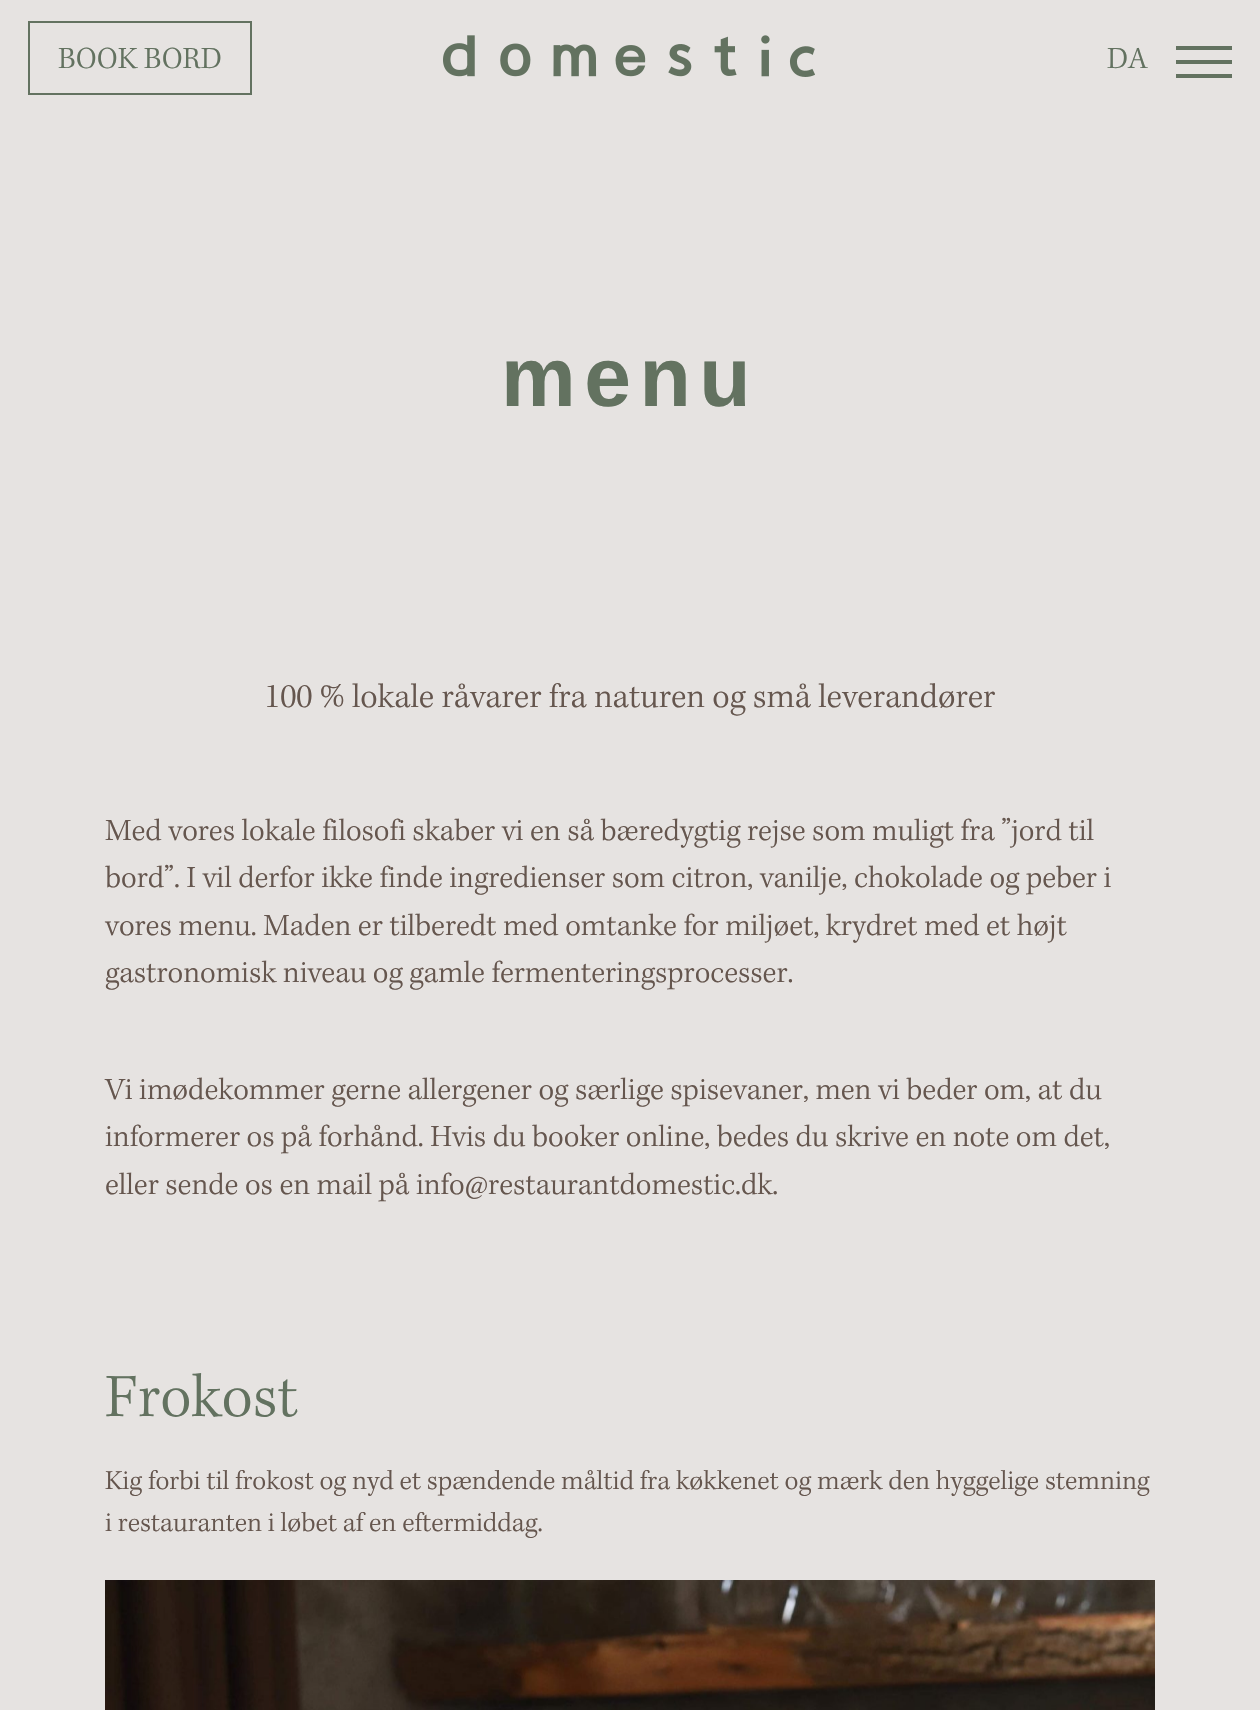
static SkFont makeFont(const char* family, int weight, float size, bool italic = false) {
  SkFontStyle style(weight, SkFontStyle::kNormal_Width,
    italic ? SkFontStyle::kItalic_Slant : SkFontStyle::kUpright_Slant);
  SkFont result(fontMgr->matchFamilyStyle(family, style), size);
  result.setSubpixel(true);
  return result;
}

static void text(SkCanvas* c, const char* s, float x, float y, const SkFont& font, SkColor color) {
  SkPaint ink(SkColor4f::FromColor(color));
  ink.setAntiAlias(true);
  c->drawString(s, x, y, font, ink);
}

static void spacedText(SkCanvas* c, const char* s, float x, float y, const SkFont& font, const SkPaint& ink, float letter, float word) {
  std::vector<SkGlyphID> glyphs(font.countText(s, strlen(s), SkTextEncoding::kUTF8));
  std::vector<float> xs(glyphs.size());
  font.textToGlyphs(s, strlen(s), SkTextEncoding::kUTF8, glyphs);
  font.getXPos(glyphs, xs, x);
  float extra = 0;
  for (size_t i = 0; i < glyphs.size(); i++) {
    xs[i] += extra;
    extra += letter + word * (glyphs[i] == font.unicharToGlyph(' '));
  }
  c->drawTextBlob(SkTextBlob::MakeFromPosHGlyphs(glyphs, xs, y, font), 0, 0, ink);
}

static void box(SkCanvas* c, float l, float t, float r, float b, SkColor color) {
  SkPaint ink(SkColor4f::FromColor(color));
  ink.setAntiAlias(true);
  c->drawRect(SkRect::MakeLTRB(l, t, r, b), ink);
}

static void picture(SkCanvas* c, const char* path, float l, float t, float r, float b) {
  auto image = SkImages::DeferredFromEncodedData(SkData::MakeFromFileName(path));
  c->drawImageRect(image, SkRect::MakeLTRB(l, t, r, b), SkSamplingOptions());
}

void draw(SkCanvas* c) {
  SkPaint paint;
  paint.setAntiAlias(true);
  c->clear(0xffe6e3e1);
  paint.setStyle(SkPaint::kStroke_Style);
  paint.setStrokeWidth(2);
  paint.setColor(0xff637260);
  c->drawRect(SkRect::MakeLTRB(29, 22, 251, 94), paint);
  SkFont face1 = makeFont("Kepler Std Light", 300, 31.5f);
  text(c, "BOOK BORD", 58, 68, face1, 0xff637260);
  picture(c, "img_01.png", 443, 35, 815, 77);
  text(c, "DA", 1107, 68, face1, 0xff637260);
  box(c, 1176, 46, 1232, 50, 0xff637260);
  box(c, 1176, 60, 1232, 64, 0xff637260);
  box(c, 1176, 74, 1232, 78, 0xff637260);
  SkFont face2 = makeFont("Liberation Sans", 700, 84);
  paint.setStyle(SkPaint::kFill_Style);
  spacedText(c, "menu", 501, 406, face2, paint, 8.5f, 0);
  SkFont face3 = makeFont("Kepler Std Light", 300, 35);
  text(c, "100 % lokale råvarer fra naturen og små leverandører", 264, 707, face3, 0xff65564e);
  text(c, "Med vores lokale filosofi skaber vi en så bæredygtig rejse som muligt fra ”jord til", 105, 840, face1, 0xff65564e);
  text(c, "bord”. I vil derfor ikke finde ingredienser som citron, vanilje, chokolade og peber i", 105, 887, face1, 0xff65564e);
  text(c, "vores menu. Maden er tilberedt med omtanke for miljøet, krydret med et højt", 105, 935, face1, 0xff65564e);
  text(c, "gastronomisk niveau og gamle fermenteringsprocesser.", 105, 982, face1, 0xff65564e);
  text(c, "Vi imødekommer gerne allergener og særlige spisevaner, men vi beder om, at du", 105, 1099, face1, 0xff65564e);
  text(c, "informerer os på forhånd. Hvis du booker online, bedes du skrive en note om det,", 105, 1146, face1, 0xff65564e);
  text(c, "eller sende os en mail på info@restaurantdomestic.dk.", 105, 1194, face1, 0xff65564e);
  SkFont face4 = makeFont("Kepler Std Light", 300, 63);
  text(c, "Frokost", 105, 1416, face4, 0xff637260);
  SkFont face5 = makeFont("Kepler Std Light", 300, 28);
  text(c, "Kig forbi til frokost og nyd et spændende måltid fra køkkenet og mærk den hyggelige stemning", 105, 1489, face5, 0xff65564e);
  text(c, "i restauranten i løbet af en eftermiddag.", 105, 1531, face5, 0xff65564e);
  picture(c, "img_02.png", 105, 1580, 1155, 1710);
}
